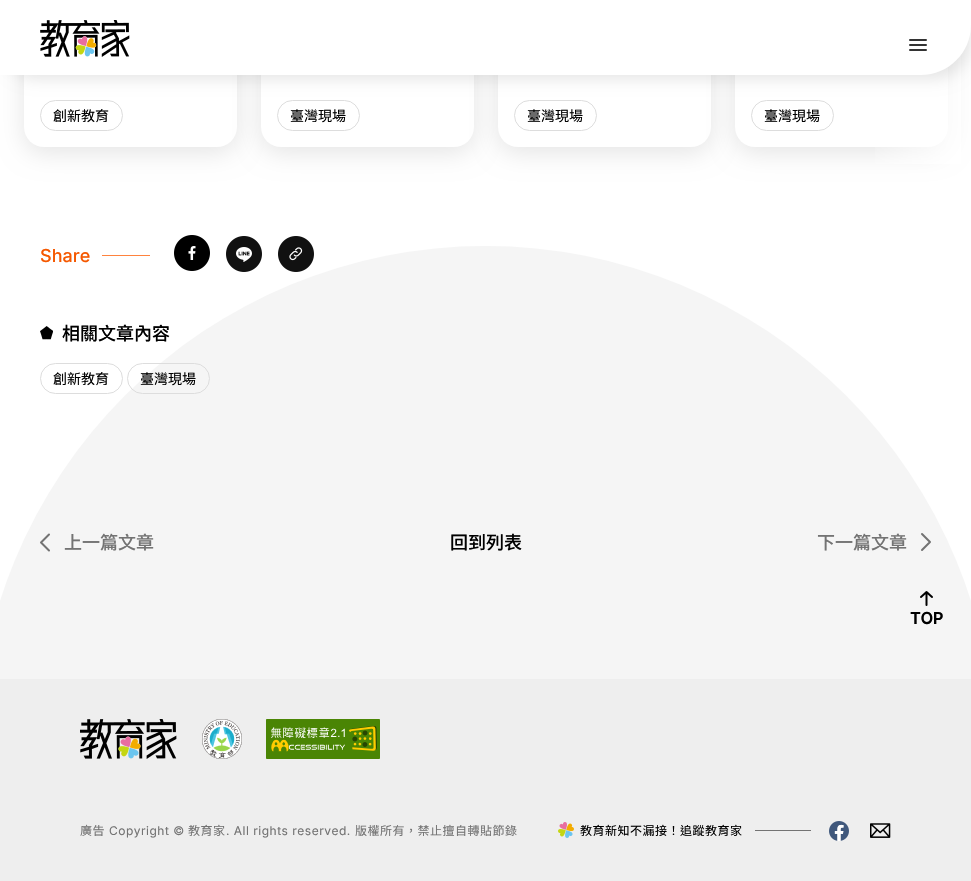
static SkFont makeFont(const char* family, int weight, float size, bool italic = false) {
  SkFontStyle style(weight, SkFontStyle::kNormal_Width,
    italic ? SkFontStyle::kItalic_Slant : SkFontStyle::kUpright_Slant);
  SkFont result(fontMgr->matchFamilyStyle(family, style), size);
  result.setSubpixel(true);
  return result;
}

static void text(SkCanvas* c, const char* s, float x, float y, const SkFont& font, SkColor color) {
  SkPaint ink(SkColor4f::FromColor(color));
  ink.setAntiAlias(true);
  c->drawString(s, x, y, font, ink);
}

static void spacedText(SkCanvas* c, const char* s, float x, float y, const SkFont& font, const SkPaint& ink, float letter, float word) {
  std::vector<SkGlyphID> glyphs(font.countText(s, strlen(s), SkTextEncoding::kUTF8));
  std::vector<float> xs(glyphs.size());
  font.textToGlyphs(s, strlen(s), SkTextEncoding::kUTF8, glyphs);
  font.getXPos(glyphs, xs, x);
  float extra = 0;
  for (size_t i = 0; i < glyphs.size(); i++) {
    xs[i] += extra;
    extra += letter + word * (glyphs[i] == font.unicharToGlyph(' '));
  }
  c->drawTextBlob(SkTextBlob::MakeFromPosHGlyphs(glyphs, xs, y, font), 0, 0, ink);
}

static void box(SkCanvas* c, float l, float t, float r, float b, SkColor color) {
  SkPaint ink(SkColor4f::FromColor(color));
  ink.setAntiAlias(true);
  c->drawRect(SkRect::MakeLTRB(l, t, r, b), ink);
}

static void roundBox(SkCanvas* c, float l, float t, float r, float b, float radius, SkColor color) {
  SkPaint ink(SkColor4f::FromColor(color));
  ink.setAntiAlias(true);
  c->drawRoundRect(SkRect::MakeLTRB(l, t, r, b), radius, radius, ink);
}

static void picture(SkCanvas* c, const char* path, float l, float t, float r, float b) {
  auto image = SkImages::DeferredFromEncodedData(SkData::MakeFromFileName(path));
  c->drawImageRect(image, SkRect::MakeLTRB(l, t, r, b), SkSamplingOptions());
}

void draw(SkCanvas* c) {
  SkPaint paint;
  paint.setAntiAlias(true);
  c->clear(0xffffffff);
  paint.setColor(0x1a000000);
  paint.setMaskFilter(SkMaskFilter::MakeBlur(kNormal_SkBlurStyle, 12.5f));
  c->drawRoundRect(SkRect::MakeLTRB(24, -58, 237, 153), 20, 20, paint);
  paint.setMaskFilter(nullptr);
  roundBox(c, 24, -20, 237, 147, 20, 0xffffffff);
  paint.setStyle(SkPaint::kStroke_Style);
  paint.setStrokeWidth(1);
  paint.setColor(0xffdddddd);
  c->drawRoundRect(SkRect::MakeLTRB(40.5f, 100.5f, 122.5f, 130.5f), 15, 15, paint);
  paint.setStyle(SkPaint::kFill_Style);
  paint.setColor(0x1a000000);
  paint.setMaskFilter(SkMaskFilter::MakeBlur(kNormal_SkBlurStyle, 12.5f));
  c->drawRoundRect(SkRect::MakeLTRB(261, -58, 474, 153), 20, 20, paint);
  paint.setMaskFilter(nullptr);
  roundBox(c, 261, -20, 474, 147, 20, 0xffffffff);
  paint.setStyle(SkPaint::kStroke_Style);
  paint.setColor(0xffdddddd);
  c->drawRoundRect(SkRect::MakeLTRB(277.5f, 100.5f, 359.5f, 130.5f), 15, 15, paint);
  paint.setStyle(SkPaint::kFill_Style);
  paint.setColor(0x1a000000);
  paint.setMaskFilter(SkMaskFilter::MakeBlur(kNormal_SkBlurStyle, 12.5f));
  c->drawRoundRect(SkRect::MakeLTRB(498, -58, 711, 153), 20, 20, paint);
  paint.setMaskFilter(nullptr);
  roundBox(c, 498, -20, 711, 147, 20, 0xffffffff);
  paint.setStyle(SkPaint::kStroke_Style);
  paint.setColor(0xffdddddd);
  c->drawRoundRect(SkRect::MakeLTRB(514.5f, 100.5f, 596.5f, 130.5f), 15, 15, paint);
  paint.setStyle(SkPaint::kFill_Style);
  paint.setColor(0x1a000000);
  paint.setMaskFilter(SkMaskFilter::MakeBlur(kNormal_SkBlurStyle, 12.5f));
  c->drawRoundRect(SkRect::MakeLTRB(735, -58, 948, 153), 20, 20, paint);
  paint.setMaskFilter(nullptr);
  roundBox(c, 735, -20, 948, 147, 20, 0xffffffff);
  paint.setStyle(SkPaint::kStroke_Style);
  paint.setColor(0xffdddddd);
  c->drawRoundRect(SkRect::MakeLTRB(751.5f, 100.5f, 833.5f, 130.5f), 15, 15, paint);
  paint.setStyle(SkPaint::kFill_Style);
  {
    const SkColor colors[] = {0xb3ffffff, 0x80ffffff, 0x00ffffff};
    const float stops[] = {0.11f, 0.26f, 0.5f};
    const SkPoint ends[] = {{971, -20}, {746, -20}};
    paint.setShader(SkGradientShader::MakeLinear(ends, colors, stops, 3, SkTileMode::kClamp));
    paint.setAlpha(255);
  }
  c->drawRect(SkRect::MakeLTRB(875, 25, 961, 164), paint);
  paint.setShader(nullptr);
  paint.setColor(0x1a000000);
  paint.setMaskFilter(SkMaskFilter::MakeBlur(kNormal_SkBlurStyle, 7.5f));
  c->drawRoundRect(SkRect::MakeLTRB(0, 4, 971, 79), 50, 50, paint);
  paint.setMaskFilter(nullptr);
  paint.setColor(0xffffffff);
  c->drawPath(SkPathBuilder().moveTo(0, 0).lineTo(971, 0).lineTo(971, 25).cubicTo(971, 52.5f, 948.5f, 75, 921, 75).lineTo(0, 75).close().detach(), paint);
  picture(c, "img_01.png", 40, 20, 130, 57);
  roundBox(c, 909, 44, 927, 46, 1, 0xff333333);
  roundBox(c, 909, 39, 927, 41, 1, 0xff333333);
  roundBox(c, 909, 49, 927, 51, 1, 0xff333333);
  SkFont face1 = makeFont("Noto Sans TC", 400, 14);
  text(c, "創新教育", 53, 121, face1, 0xff000000);
  text(c, "臺灣現場", 290, 121, face1, 0xff000000);
  text(c, "臺灣現場", 527, 121, face1, 0xff000000);
  text(c, "臺灣現場", 764, 121, face1, 0xff000000);
  box(c, 0, 679, 971, 881, 0xffeeeeee);
  picture(c, "img_07.png", 80, 719, 177, 759);
  picture(c, "img_08.png", 202, 719, 242, 759);
  picture(c, "img_09.png", 266, 719, 380, 759);
  SkFont face2 = makeFont("Noto Sans TC", 400, 12);
  paint.setColor(0xff737373);
  spacedText(c, "廣告", 80, 835, face2, paint, 0.5f, 0);
  SkFont face3 = makeFont("Inter", 400, 12);
  spacedText(c, "Copyright ©", 109, 835, face3, paint, 0.5f, 0);
  spacedText(c, "教育家", 188, 835, face2, paint, 0.5f, 0);
  spacedText(c, ". All rights reserved.", 226, 835, face3, paint, 0.5f, 0);
  spacedText(c, "版權所有，禁止擅自轉貼節錄", 355, 835, face2, paint, 0.5f, 0);
  picture(c, "img_10.png", 558, 822, 574, 838);
  paint.setColor(0xff000000);
  spacedText(c, "教育新知不漏接！追蹤教育家", 580, 835, face2, paint, 0.5f, 0);
  box(c, 755, 830, 811, 831, 0xff737373);
  picture(c, "img_11.png", 829, 821, 849, 841);
  picture(c, "img_12.png", 870, 823, 891, 838);
  c->save();
  c->clipRect(SkRect::MakeLTRB(0, 171, 971, 679));
  roundBox(c, -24, 246, 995, 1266, 509.5f, 0xfff5f5f5);
  c->restore();
  SkFont face4 = makeFont("Inter", 500, 18);
  text(c, "Share", 40, 262, face4, 0xfff55800);
  box(c, 102, 255, 150, 256, 0xffff833e);
  picture(c, "img_02.png", 174, 235, 210, 271);
  picture(c, "img_03.png", 226, 236, 262, 272);
  picture(c, "img_04.png", 278, 236, 314, 272);
  picture(c, "img_05.png", 40, 326, 53, 340);
  SkFont face5 = makeFont("Noto Sans TC", 500, 18);
  text(c, "相關文章內容", 62, 340, face5, 0xff000000);
  paint.setStyle(SkPaint::kStroke_Style);
  paint.setColor(0xffdddddd);
  c->drawRoundRect(SkRect::MakeLTRB(40.5f, 363.5f, 122.5f, 393.5f), 15, 15, paint);
  text(c, "創新教育", 53, 384, face1, 0xff000000);
  c->drawRoundRect(SkRect::MakeLTRB(127.5f, 363.5f, 209.5f, 393.5f), 15, 15, paint);
  text(c, "臺灣現場", 140, 384, face1, 0xff000000);
  paint.setStrokeWidth(2);
  paint.setStrokeCap(SkPaint::kRound_Cap);
  paint.setStrokeJoin(SkPaint::kRound_Join);
  paint.setColor(0xff737373);
  c->drawPath(SkPathBuilder().moveTo(49, 550.5f).lineTo(41, 542.5f).lineTo(49, 534.5f).detach(), paint);
  text(c, "上一篇文章", 64, 549, face5, 0xff737373);
  text(c, "回到列表", 450, 549, face5, 0xff000000);
  text(c, "下一篇文章", 817, 549, face5, 0xff737373);
  c->drawPath(SkPathBuilder().moveTo(922, 534).lineTo(930, 542).lineTo(922, 550).detach(), paint);
  picture(c, "img_06.png", 920, 591, 933, 606);
  SkFont face6 = makeFont("Inter", 700, 16);
  text(c, "TOP", 910, 624, face6, 0xff000000);
}
